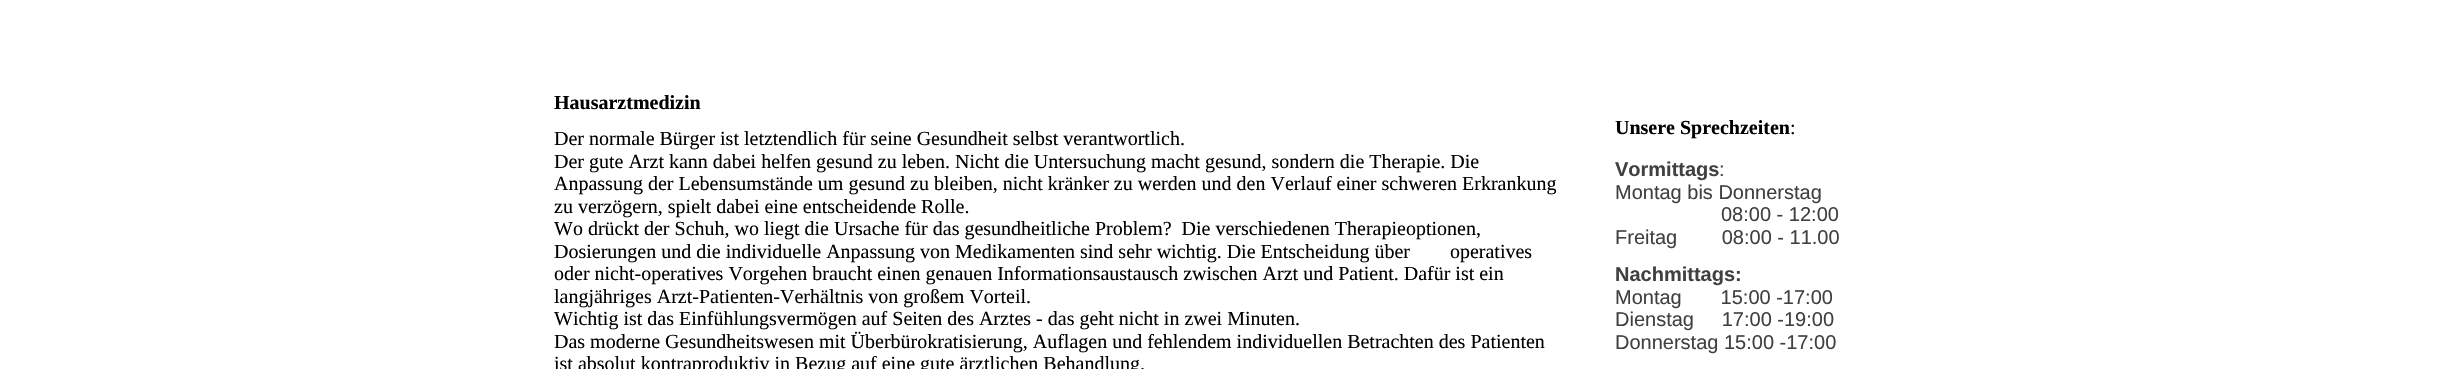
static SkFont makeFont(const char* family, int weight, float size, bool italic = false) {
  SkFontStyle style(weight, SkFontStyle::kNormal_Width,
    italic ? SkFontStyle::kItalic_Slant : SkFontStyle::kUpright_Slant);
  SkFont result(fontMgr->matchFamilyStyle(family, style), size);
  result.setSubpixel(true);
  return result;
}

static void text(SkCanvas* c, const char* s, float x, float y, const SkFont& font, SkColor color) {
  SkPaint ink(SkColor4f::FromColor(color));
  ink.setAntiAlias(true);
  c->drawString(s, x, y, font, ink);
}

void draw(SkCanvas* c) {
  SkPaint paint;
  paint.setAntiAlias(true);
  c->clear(0xffffffff);
  SkFont face1 = makeFont("Liberation Serif", 700, 20);
  text(c, "Hausarztmedizin", 554, 109, face1, 0xff000000);
  SkFont face2 = makeFont("Liberation Serif", 400, 20);
  text(c, "Der normale Bürger ist letztendlich für seine Gesundheit selbst verantwortlich.", 554, 145, face2, 0xff000000);
  text(c, "Der gute Arzt kann dabei helfen gesund zu leben. Nicht die Untersuchung macht gesund, sondern die Therapie. Die", 554, 168, face2, 0xff000000);
  text(c, "Anpassung der Lebensumstände um gesund zu bleiben, nicht kränker zu werden und den Verlauf einer schweren Erkrankung", 554, 190, face2, 0xff000000);
  text(c, "zu verzögern, spielt dabei eine entscheidende Rolle.", 554, 213, face2, 0xff000000);
  text(c, "Wo drückt der Schuh, wo liegt die Ursache für das gesundheitliche Problem?  Die verschiedenen Therapieoptionen,", 554, 235, face2, 0xff000000);
  text(c, "Dosierungen und die individuelle Anpassung von Medikamenten sind sehr wichtig. Die Entscheidung über        operatives", 554, 258, face2, 0xff000000);
  text(c, "oder nicht-operatives Vorgehen braucht einen genauen Informationsaustausch zwischen Arzt und Patient. Dafür ist ein", 554, 280, face2, 0xff000000);
  text(c, "langjähriges Arzt-Patienten-Verhältnis von großem Vorteil.", 554, 303, face2, 0xff000000);
  text(c, "Wichtig ist das Einfühlungsvermögen auf Seiten des Arztes - das geht nicht in zwei Minuten.", 554, 325, face2, 0xff000000);
  text(c, "Das moderne Gesundheitswesen mit Überbürokratisierung, Auflagen und fehlendem individuellen Betrachten des Patienten", 554, 348, face2, 0xff000000);
  text(c, "ist absolut kontraproduktiv in Bezug auf eine gute ärztlichen Behandlung.", 554, 370, face2, 0xff000000);
  text(c, "Unsere Sprechzeiten", 1615, 134, face1, 0xff000000);
  text(c, ":", 1790, 134, face2, 0xff000000);
  SkFont face3 = makeFont("Liberation Sans", 700, 20);
  text(c, "Vormittags", 1615, 176, face3, 0xff404040);
  SkFont face4 = makeFont("Liberation Sans", 400, 20);
  text(c, ":", 1719, 176, face4, 0xff404040);
  text(c, "Montag bis Donnerstag", 1615, 199, face4, 0xff404040);
  text(c, "08:00 - 12:00", 1721, 221, face4, 0xff404040);
  text(c, "Freitag        08:00 - 11.00", 1615, 244, face4, 0xff404040);
  text(c, "Nachmittags:", 1615, 281, face3, 0xff404040);
  text(c, "Montag       15:00 -17:00", 1615, 304, face4, 0xff404040);
  text(c, "Dienstag     17:00 -19:00", 1615, 326, face4, 0xff404040);
  text(c, "Donnerstag 15:00 -17:00", 1615, 349, face4, 0xff404040);
}
